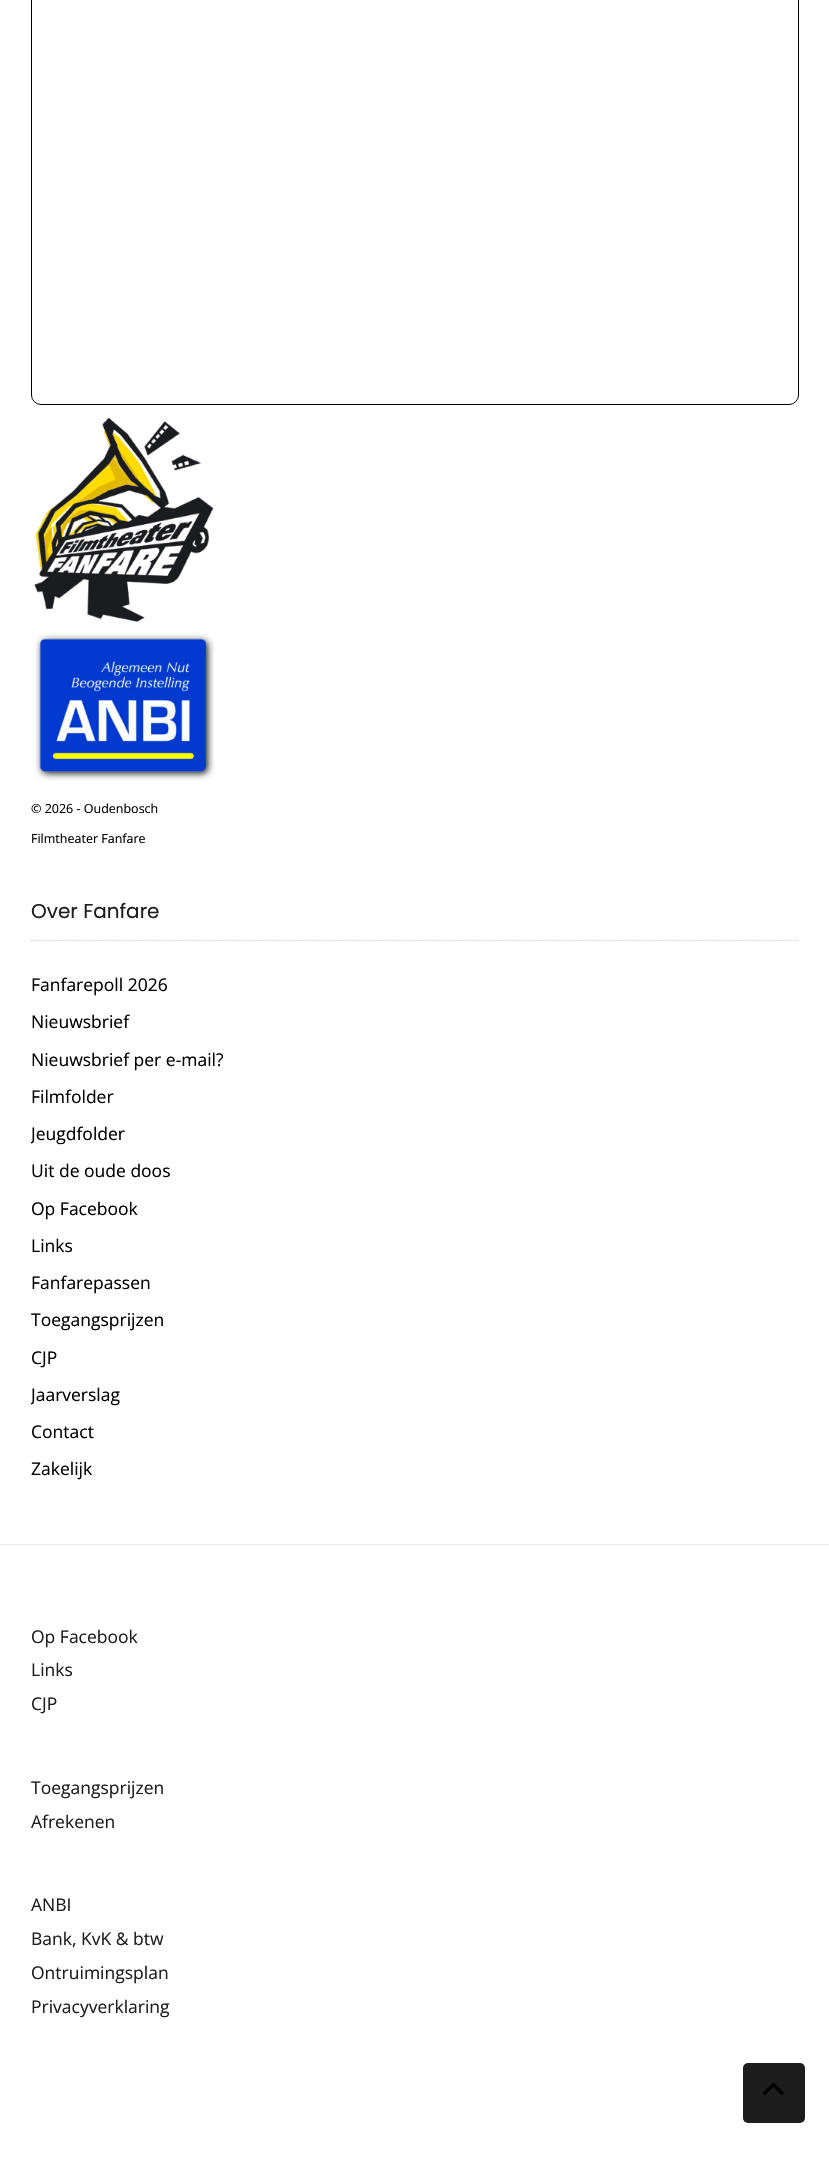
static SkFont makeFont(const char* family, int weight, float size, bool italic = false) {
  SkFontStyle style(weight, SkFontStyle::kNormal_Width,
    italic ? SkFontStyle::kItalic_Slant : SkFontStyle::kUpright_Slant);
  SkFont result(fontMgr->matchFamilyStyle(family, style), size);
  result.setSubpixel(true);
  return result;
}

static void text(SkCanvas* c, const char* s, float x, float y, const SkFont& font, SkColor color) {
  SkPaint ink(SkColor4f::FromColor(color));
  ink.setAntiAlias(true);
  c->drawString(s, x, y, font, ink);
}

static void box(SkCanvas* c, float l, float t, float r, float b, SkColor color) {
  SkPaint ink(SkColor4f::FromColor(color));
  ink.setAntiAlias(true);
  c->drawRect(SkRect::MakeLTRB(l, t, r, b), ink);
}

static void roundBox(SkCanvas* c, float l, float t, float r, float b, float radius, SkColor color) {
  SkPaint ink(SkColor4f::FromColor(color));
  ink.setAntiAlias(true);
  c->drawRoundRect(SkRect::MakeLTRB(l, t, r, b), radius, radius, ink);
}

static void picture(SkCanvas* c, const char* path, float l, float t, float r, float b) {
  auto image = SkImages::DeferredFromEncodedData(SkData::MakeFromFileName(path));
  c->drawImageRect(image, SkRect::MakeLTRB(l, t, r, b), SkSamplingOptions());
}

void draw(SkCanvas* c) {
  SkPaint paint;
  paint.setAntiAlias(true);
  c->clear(0xffffffff);
  paint.setStyle(SkPaint::kStroke_Style);
  paint.setStrokeWidth(1);
  paint.setColor(0xff000000);
  c->drawRoundRect(SkRect::MakeLTRB(31.5f, -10.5f, 798.5f, 404.5f), 9.5f, 9.5f, paint);
  picture(c, "img_01.png", 34, 417, 214, 622);
  picture(c, "img_02.png", 34, 634, 215, 781);
  SkFont face1 = makeFont("Open Sans", 400, 12.5f);
  text(c, "© 2026 - Oudenbosch", 31, 813, face1, 0xff000000);
  text(c, "Filmtheater Fanfare", 31, 843, face1, 0xff000000);
  paint.setStrokeWidth(1.2f);
  paint.setColor(0xffcccccc);
  paint.setPathEffect(SkDashPathEffect::Make({{1.25f, 1.25f}}, 0));
  c->drawPath(SkPathBuilder().moveTo(31, 940.5f).lineTo(799, 940.5f).detach(), paint);
  paint.setPathEffect(nullptr);
  SkFont face2 = makeFont("Poppins", 400, 20);
  text(c, "Over Fanfare", 31, 918, face2, 0xff1d1d1d);
  SkFont face3 = makeFont("Open Sans", 400, 17.5f);
  text(c, "Fanfarepoll 2026", 31, 991, face3, 0xff000000);
  text(c, "Nieuwsbrief", 31, 1028, face3, 0xff000000);
  text(c, "Nieuwsbrief per e-mail?", 31, 1066, face3, 0xff000000);
  text(c, "Filmfolder", 31, 1103, face3, 0xff000000);
  c->save();
  c->clipRect(SkRect::MakeLTRB(31, 411, 799, 1544));
  text(c, "Jeugdfolder", 31, 1140, face3, 0xff000000);
  c->restore();
  text(c, "Uit de oude doos", 31, 1177, face3, 0xff000000);
  text(c, "Op Facebook", 31, 1215, face3, 0xff000000);
  text(c, "Links", 31, 1252, face3, 0xff000000);
  text(c, "Fanfarepassen", 31, 1289, face3, 0xff000000);
  text(c, "Toegangsprijzen", 31, 1326, face3, 0xff000000);
  text(c, "CJP", 31, 1364, face3, 0xff000000);
  c->save();
  c->clipRect(SkRect::MakeLTRB(31, 411, 799, 1544));
  text(c, "Jaarverslag", 31, 1401, face3, 0xff000000);
  c->restore();
  text(c, "Contact", 31, 1438, face3, 0xff000000);
  text(c, "Zakelijk", 31, 1475, face3, 0xff000000);
  box(c, 0, 1544, 829, 1545, 0xffe9e9e9);
  text(c, "Op Facebook", 31, 1643, face3, 0xff1d1d1d);
  text(c, "Links", 31, 1676, face3, 0xff1d1d1d);
  text(c, "CJP", 31, 1710, face3, 0xff1d1d1d);
  text(c, "Toegangsprijzen", 31, 1794, face3, 0xff1d1d1d);
  text(c, "Afrekenen", 31, 1828, face3, 0xff1d1d1d);
  text(c, "ANBI", 31, 1911, face3, 0xff1d1d1d);
  text(c, "Bank, KvK & btw", 31, 1945, face3, 0xff1d1d1d);
  text(c, "Ontruimingsplan", 31, 1979, face3, 0xff1d1d1d);
  text(c, "Privacyverklaring", 31, 2013, face3, 0xff1d1d1d);
  roundBox(c, 743, 2063, 805, 2123, 5, 0xff1d1d1d);
  picture(c, "img_03.png", 763, 2083, 784, 2095);
}
